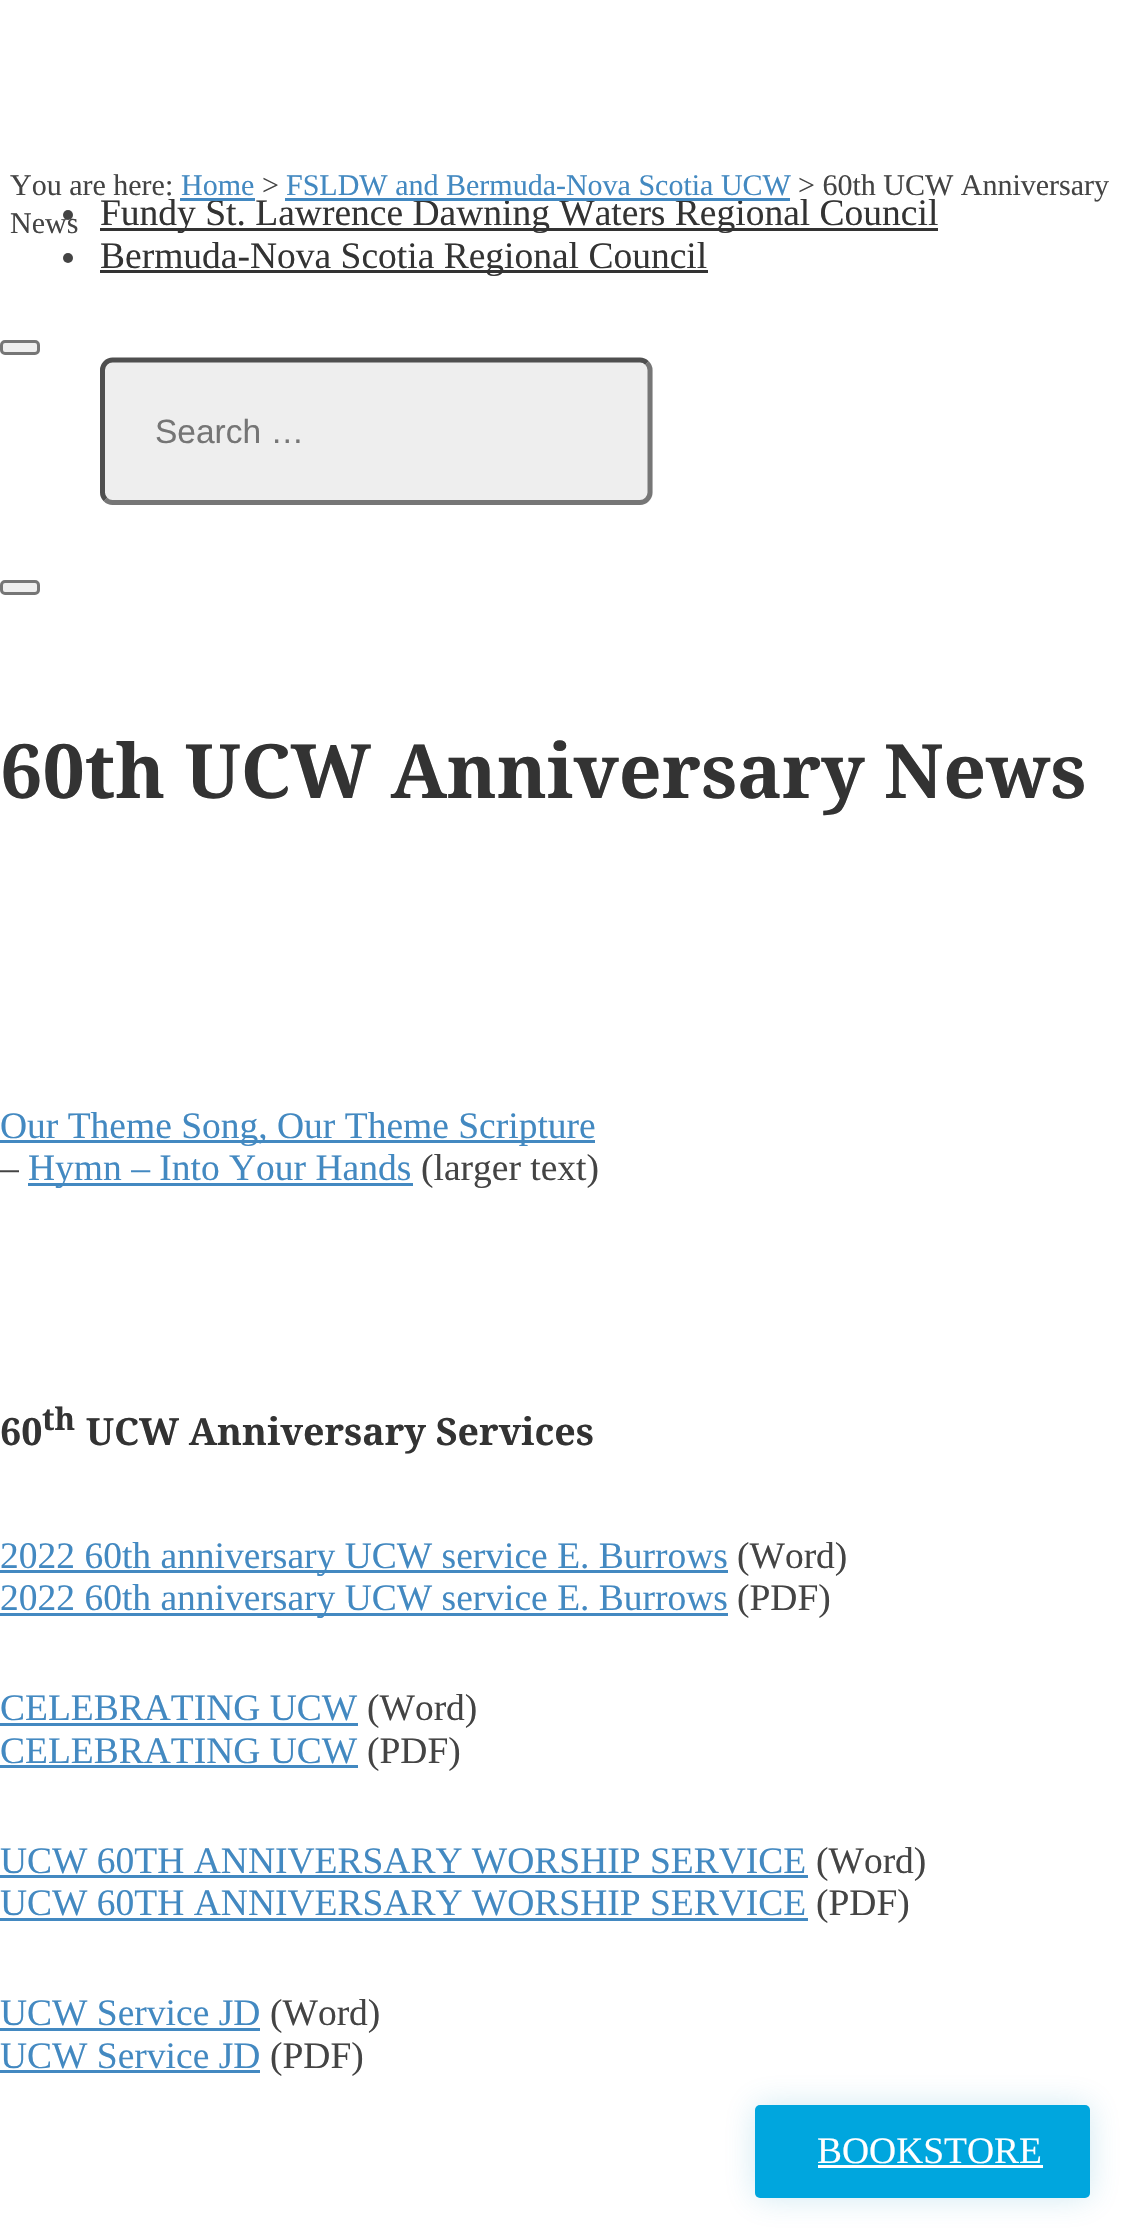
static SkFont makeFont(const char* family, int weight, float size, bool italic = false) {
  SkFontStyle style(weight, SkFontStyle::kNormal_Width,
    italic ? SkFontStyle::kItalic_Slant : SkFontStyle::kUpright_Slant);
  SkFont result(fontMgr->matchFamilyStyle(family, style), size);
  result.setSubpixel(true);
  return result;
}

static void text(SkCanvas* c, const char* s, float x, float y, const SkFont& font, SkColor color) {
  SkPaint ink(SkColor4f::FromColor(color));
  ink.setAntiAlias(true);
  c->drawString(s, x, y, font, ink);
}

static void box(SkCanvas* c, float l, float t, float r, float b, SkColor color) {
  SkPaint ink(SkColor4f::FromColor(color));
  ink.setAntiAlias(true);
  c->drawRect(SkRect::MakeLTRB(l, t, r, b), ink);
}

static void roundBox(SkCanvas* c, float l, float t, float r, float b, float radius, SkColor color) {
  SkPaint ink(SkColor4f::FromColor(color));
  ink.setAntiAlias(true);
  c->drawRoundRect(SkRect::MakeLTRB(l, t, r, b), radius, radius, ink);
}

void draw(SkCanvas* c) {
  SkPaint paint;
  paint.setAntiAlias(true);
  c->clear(0xffffffff);
  SkFont face1 = makeFont("Liberation Serif", 400, 30);
  text(c, "You are here:", 10, 195, face1, 0xff444444);
  text(c, "Home", 181, 195, face1, 0xff4389c1);
  box(c, 100, 228, 938, 231, 0xff333333);
  SkFont face2 = makeFont("Liberation Serif", 400, 37.5f);
  text(c, "Fundy St. Lawrence Dawning Waters Regional Council", 100, 225, face2, 0xff333333);
  box(c, 180, 198, 255, 201, 0xff4389c1);
  text(c, ">", 262, 195, face1, 0xff444444);
  text(c, "FSLDW and Bermuda-Nova Scotia UCW", 286, 195, face1, 0xff4389c1);
  box(c, 285, 198, 790, 201, 0xff4389c1);
  text(c, "> 60th UCW Anniversary", 798, 195, face1, 0xff444444);
  paint.setColor(0xff444444);
  c->drawCircle(68, 215, 5, paint);
  text(c, "News", 10, 233, face1, 0xff444444);
  c->drawCircle(68, 258, 5, paint);
  box(c, 100, 270, 708, 273, 0xff333333);
  text(c, "Bermuda-Nova Scotia Regional Council", 100, 268, face2, 0xff333333);
  paint.setColor(0xffefefef);
  c->drawRoundRect(SkRect::MakeLTRB(1.5f, 341.5f, 38.5f, 353.5f), 3.5f, 3.5f, paint);
  paint.setStyle(SkPaint::kStroke_Style);
  paint.setStrokeWidth(3);
  paint.setColor(0xff767676);
  c->drawRoundRect(SkRect::MakeLTRB(1.5f, 341.5f, 38.5f, 353.5f), 3.5f, 3.5f, paint);
  roundBox(c, 100, 358, 653, 505, 13, 0xffeeeeee);
  paint.setStrokeWidth(5);
  c->drawPath(SkPathBuilder().moveTo(647, 363).cubicTo(649, 365, 650, 367.5f, 650, 370).lineTo(650, 492.5f).cubicTo(650, 495, 649, 497.5f, 647, 499.5f).cubicTo(645, 501.5f, 642.5f, 502.5f, 640, 502.5f).lineTo(112.5f, 502.5f).cubicTo(110, 502.5f, 107.5f, 501.5f, 105.5f, 499.5f).detach(), paint);
  paint.setColor(0xff4f4f4f);
  c->drawPath(SkPathBuilder().moveTo(105.5f, 499.5f).cubicTo(103.5f, 497.5f, 102.5f, 495, 102.5f, 492.5f).lineTo(102.5f, 370).cubicTo(102.5f, 367.5f, 103.5f, 365, 105.5f, 363).cubicTo(107.5f, 361, 110, 360, 112.5f, 360).lineTo(640, 360).cubicTo(642.5f, 360, 645, 361, 647, 363).detach(), paint);
  SkFont face3 = makeFont("Liberation Sans", 400, 33.5f);
  text(c, "Search …", 155, 443, face3, 0xff757575);
  paint.setStyle(SkPaint::kFill_Style);
  paint.setColor(0xffefefef);
  c->drawRoundRect(SkRect::MakeLTRB(1.5f, 581.5f, 38.5f, 593.5f), 3.5f, 3.5f, paint);
  paint.setStyle(SkPaint::kStroke_Style);
  paint.setStrokeWidth(3);
  paint.setColor(0xff767676);
  c->drawRoundRect(SkRect::MakeLTRB(1.5f, 581.5f, 38.5f, 593.5f), 3.5f, 3.5f, paint);
  SkFont face4 = makeFont("Noto Serif", 700, 75);
  text(c, "60th UCW Anniversary News", 0, 798, face4, 0xff333333);
  box(c, 0, 1140, 595, 1143, 0xff4389c1);
  text(c, "Our Theme Song, Our Theme Scripture", 0, 1138, face2, 0xff4389c1);
  text(c, "–", 0, 1180, face2, 0xff444444);
  box(c, 28, 1183, 413, 1186, 0xff4389c1);
  text(c, "Hymn – Into Your Hands", 28, 1180, face2, 0xff4389c1);
  text(c, "(larger text)", 421, 1180, face2, 0xff444444);
  SkFont face5 = makeFont("Noto Serif", 700, 37.5f);
  text(c, "60", 0, 1445, face5, 0xff333333);
  SkFont face6 = makeFont("Noto Serif", 700, 31);
  text(c, "th", 42, 1430, face6, 0xff333333);
  text(c, "UCW Anniversary Services", 86, 1445, face5, 0xff333333);
  box(c, 0, 1570, 728, 1573, 0xff4389c1);
  text(c, "2022 60th anniversary UCW service E. Burrows", 0, 1568, face2, 0xff4389c1);
  text(c, "(Word)", 737, 1568, face2, 0xff444444);
  box(c, 0, 1613, 728, 1616, 0xff4389c1);
  text(c, "2022 60th anniversary UCW service E. Burrows", 0, 1610, face2, 0xff4389c1);
  text(c, "(PDF)", 737, 1610, face2, 0xff444444);
  text(c, "CELEBRATING UCW", 0, 1720, face2, 0xff4389c1);
  box(c, 0, 1723, 358, 1726, 0xff4389c1);
  text(c, "(Word)", 367, 1720, face2, 0xff444444);
  text(c, "CELEBRATING UCW", 0, 1763, face2, 0xff4389c1);
  box(c, 0, 1765, 358, 1768, 0xff4389c1);
  text(c, "(PDF)", 367, 1763, face2, 0xff444444);
  text(c, "UCW 60TH ANNIVERSARY WORSHIP SERVICE", 0, 1873, face2, 0xff4389c1);
  box(c, 0, 1875, 808, 1878, 0xff4389c1);
  text(c, "(Word)", 816, 1873, face2, 0xff444444);
  text(c, "UCW 60TH ANNIVERSARY WORSHIP SERVICE", 0, 1915, face2, 0xff4389c1);
  box(c, 0, 1918, 808, 1921, 0xff4389c1);
  text(c, "(PDF)", 816, 1915, face2, 0xff444444);
  text(c, "UCW Service JD", 0, 2025, face2, 0xff4389c1);
  box(c, 0, 2028, 260, 2031, 0xff4389c1);
  text(c, "(Word)", 270, 2025, face2, 0xff444444);
  text(c, "UCW Service JD", 0, 2068, face2, 0xff4389c1);
  box(c, 0, 2070, 260, 2073, 0xff4389c1);
  text(c, "(PDF)", 270, 2068, face2, 0xff444444);
  paint.setStyle(SkPaint::kFill_Style);
  paint.setColor(0x30088bb9);
  paint.setMaskFilter(SkMaskFilter::MakeBlur(kNormal_SkBlurStyle, 16));
  c->drawRoundRect(SkRect::MakeLTRB(755, 2105, 1090, 2198), 5, 5, paint);
  paint.setMaskFilter(nullptr);
  roundBox(c, 755, 2105, 1090, 2198, 5, 0xff00a6de);
  text(c, "BOOKSTORE", 817, 2163, face2, 0xffffffff);
  box(c, 818, 2165, 1043, 2168, 0xffffffff);
}
